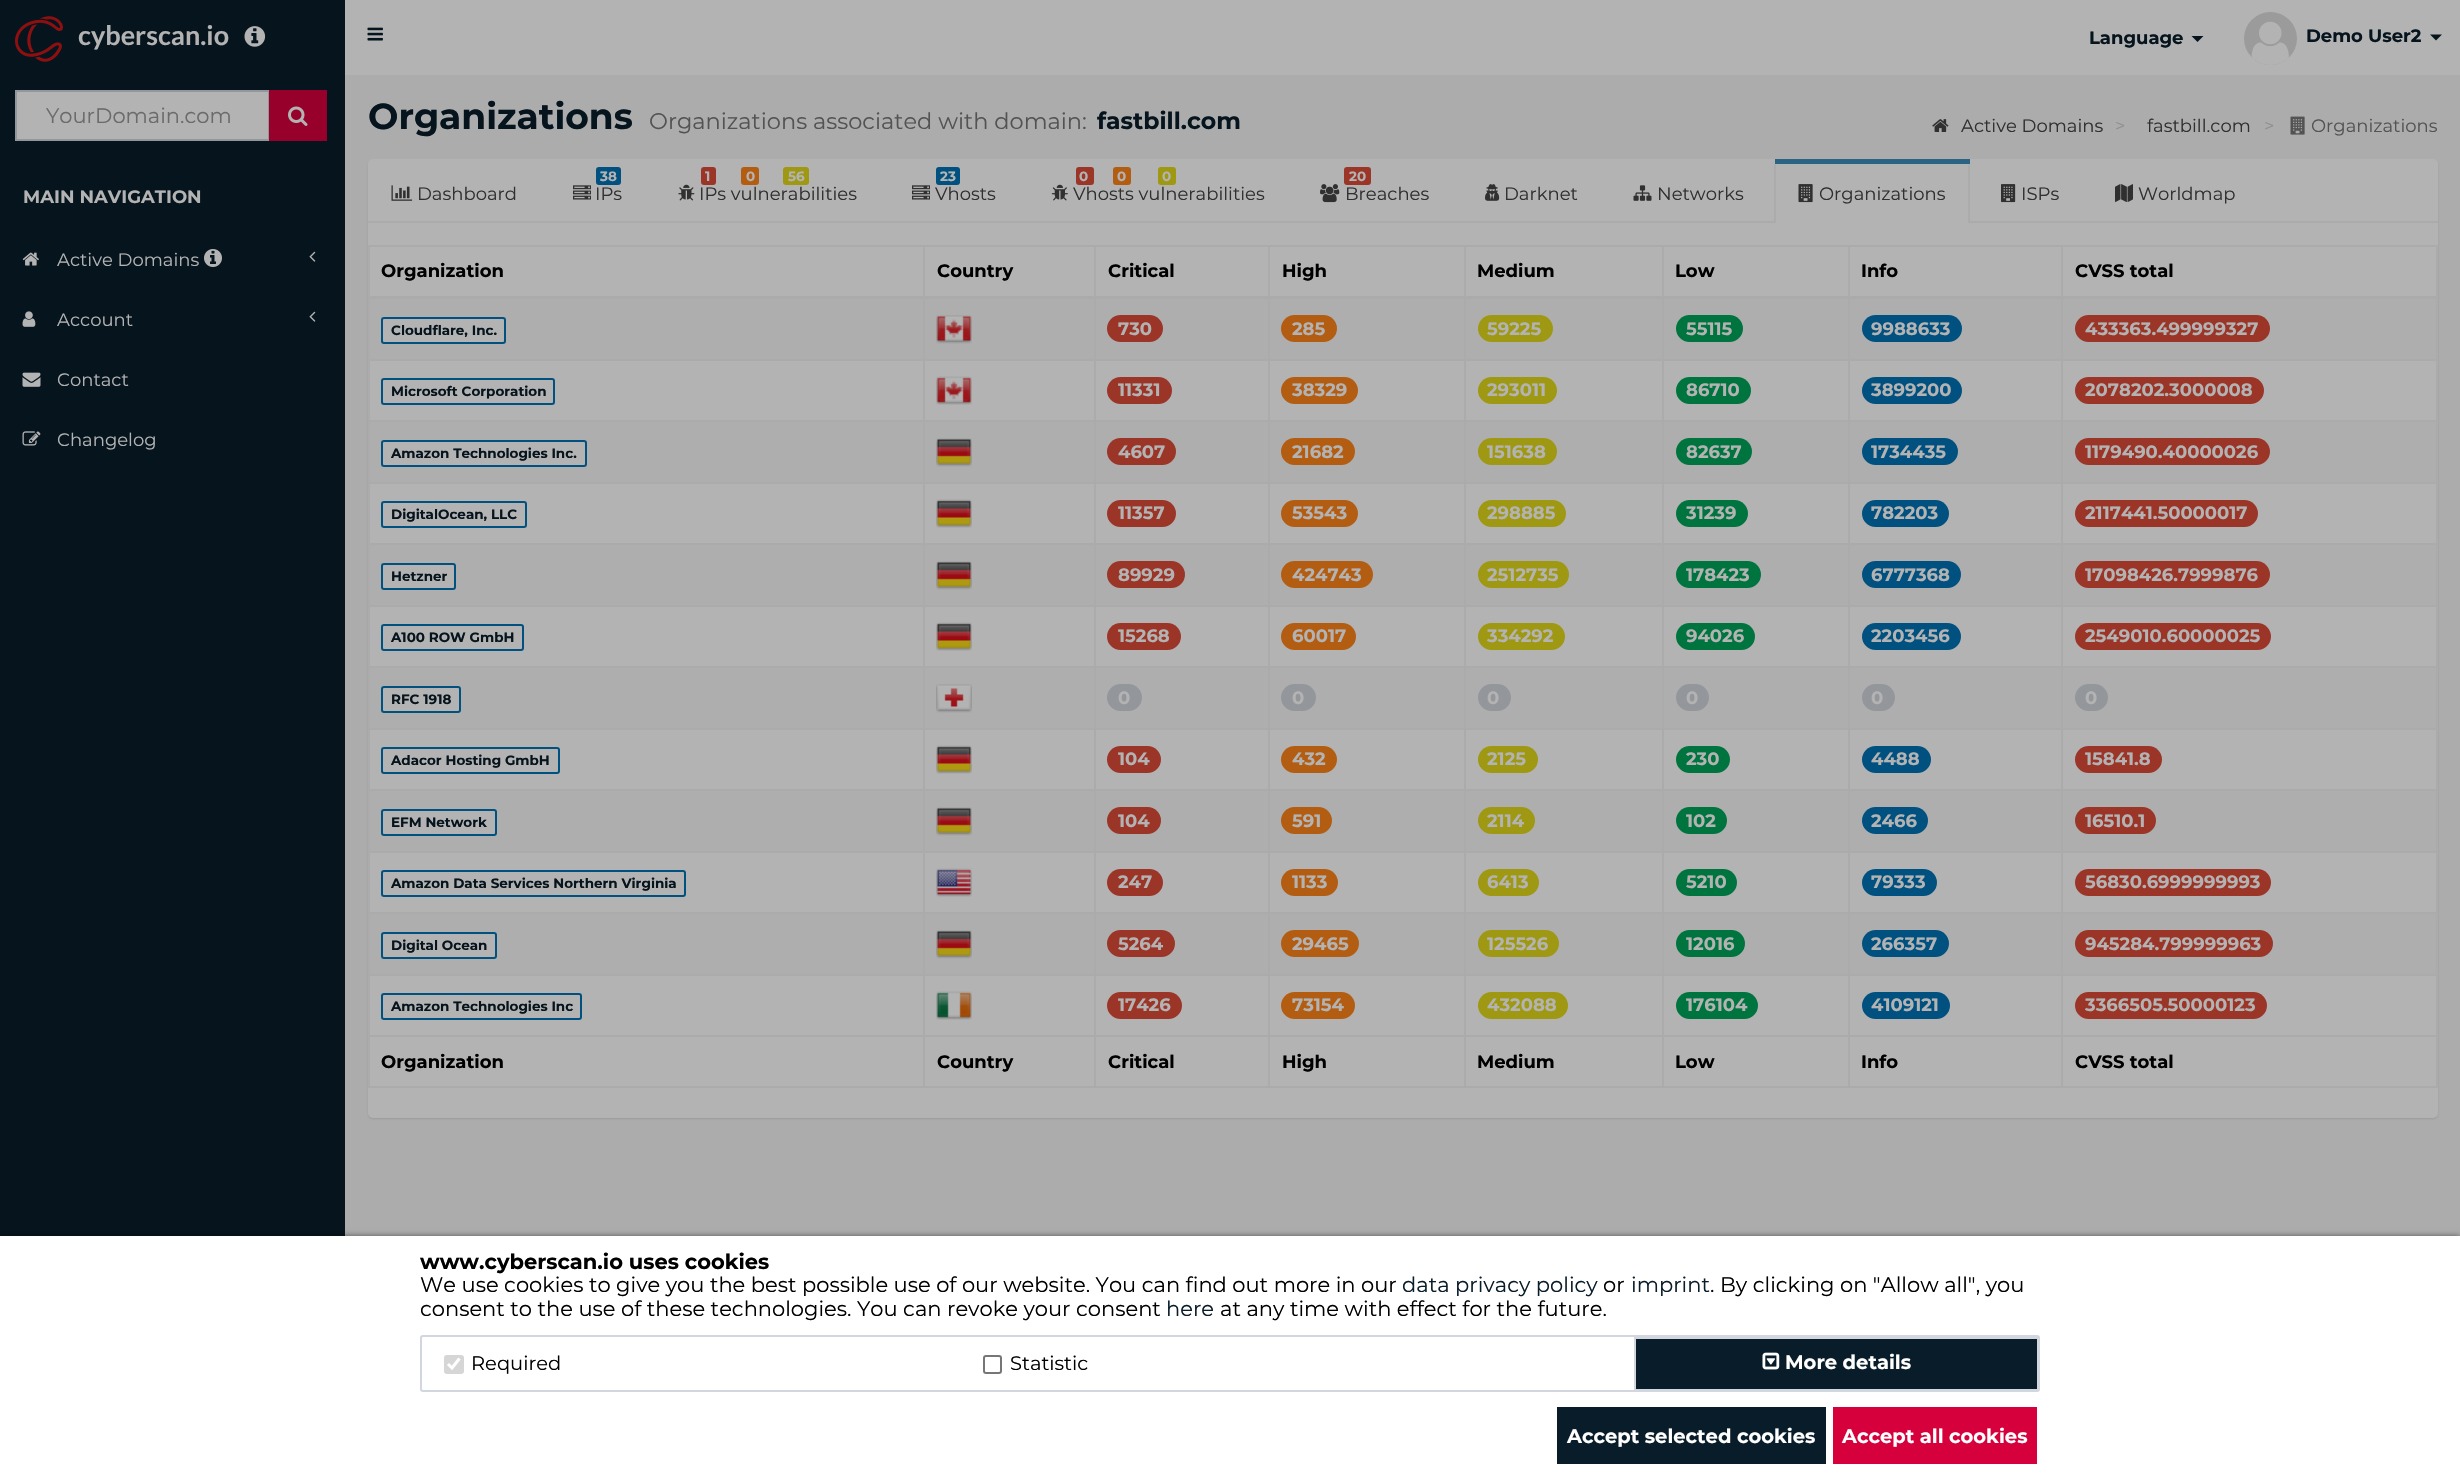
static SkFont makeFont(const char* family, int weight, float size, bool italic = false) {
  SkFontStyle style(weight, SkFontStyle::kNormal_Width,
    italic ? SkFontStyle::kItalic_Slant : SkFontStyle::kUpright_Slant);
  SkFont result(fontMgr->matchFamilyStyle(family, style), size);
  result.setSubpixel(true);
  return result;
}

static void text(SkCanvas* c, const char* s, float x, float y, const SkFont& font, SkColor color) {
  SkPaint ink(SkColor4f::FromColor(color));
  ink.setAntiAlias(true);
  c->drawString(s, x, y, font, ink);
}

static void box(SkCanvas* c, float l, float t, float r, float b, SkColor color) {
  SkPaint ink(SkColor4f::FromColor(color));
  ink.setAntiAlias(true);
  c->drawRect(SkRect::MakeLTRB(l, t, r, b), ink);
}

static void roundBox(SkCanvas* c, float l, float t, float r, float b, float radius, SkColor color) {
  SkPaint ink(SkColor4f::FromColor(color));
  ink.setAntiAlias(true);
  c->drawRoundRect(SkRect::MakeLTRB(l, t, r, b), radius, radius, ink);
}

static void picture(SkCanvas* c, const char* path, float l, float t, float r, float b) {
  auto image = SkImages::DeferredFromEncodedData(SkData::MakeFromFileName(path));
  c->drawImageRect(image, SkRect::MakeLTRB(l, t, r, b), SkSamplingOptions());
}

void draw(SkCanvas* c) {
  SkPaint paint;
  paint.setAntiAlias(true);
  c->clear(0xffb3b3b3);
  box(c, 0, 0, 345, 1236, 0xff06141d);
  picture(c, "img_01.png", 15, 16, 63, 62);
  SkFont face1 = makeFont("Lato", 700, 27);
  text(c, "cyberscan.io", 78, 45, face1, 0xffb3b3b3);
  picture(c, "img_02.png", 244, 26, 266, 47);
  picture(c, "img_03.png", 367, 27, 383, 41);
  SkFont face2 = makeFont("Montserrat", 100, 18);
  text(c, "Language", 2089, 44, face2, 0xff06141d);
  paint.setColor(0xff06141d);
  c->drawPath(SkPathBuilder().moveTo(2191.5f, 36).lineTo(2203.5f, 36).lineTo(2197.5f, 42).close().detach(), paint);
  paint.setColor(0xff9b9b9b);
  c->drawCircle(2270.5f, 38.5f, 26.5f, paint);
  picture(c, "img_04.png", 2251, 21, 2289, 65);
  text(c, "Demo User2", 2306, 42, face2, 0xff06141d);
  paint.setColor(0xff06141d);
  c->drawPath(SkPathBuilder().moveTo(2430, 34.5f).lineTo(2442, 34.5f).lineTo(2436, 40.5f).close().detach(), paint);
  paint.setColor(0xffb3b3b3);
  c->drawRect(SkRect::MakeLTRB(16, 91, 269, 140), paint);
  paint.setStyle(SkPaint::kStroke_Style);
  paint.setStrokeWidth(2);
  paint.setColor(0xff93969b);
  c->drawRect(SkRect::MakeLTRB(16, 91, 269, 140), paint);
  SkFont face3 = makeFont("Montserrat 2", 100, 21);
  text(c, "YourDomain.com", 46, 123, face3, 0xff6b6b6b);
  box(c, 269, 90, 327, 141, 0xff96002a);
  picture(c, "img_05.png", 288, 106, 308, 126);
  text(c, "MAIN NAVIGATION", 23, 203, face2, 0xffb3b3b3);
  picture(c, "img_06.png", 22, 252, 39, 266);
  SkFont face4 = makeFont("Montserrat 2", 100, 18);
  text(c, "Active Domains", 57, 266, face4, 0xffb3b3b3);
  picture(c, "img_07.png", 204, 249, 222, 267);
  picture(c, "img_08.png", 309, 251, 316, 262);
  picture(c, "img_09.png", 22, 311, 36, 327);
  text(c, "Account", 57, 326, face4, 0xffb3b3b3);
  picture(c, "img_08.png", 309, 311, 316, 322);
  picture(c, "img_10.png", 22, 372, 41, 387);
  text(c, "Contact", 57, 386, face4, 0xffb3b3b3);
  picture(c, "img_11.png", 22, 431, 41, 446);
  text(c, "Changelog", 57, 446, face4, 0xffb3b3b3);
  box(c, 345, 75, 2460, 1236, 0xffacacac);
  SkFont face5 = makeFont("Montserrat", 100, 36);
  text(c, "Organizations", 368, 129, face5, 0xff06141d);
  SkFont face6 = makeFont("Montserrat 2", 100, 22.5f);
  text(c, "Organizations associated with domain:", 649, 129, face6, 0xff535353);
  SkFont face7 = makeFont("Montserrat", 100, 23.5f);
  text(c, "fastbill.com", 1097, 129, face7, 0xff06141d);
  picture(c, "img_12.png", 1932, 119, 1949, 132);
  text(c, "Active Domains", 1961, 132, face4, 0xff303030);
  text(c, ">", 2115, 132, face4, 0xff8f8f8f);
  text(c, "fastbill.com", 2147, 132, face4, 0xff303030);
  text(c, ">", 2264, 132, face4, 0xff8f8f8f);
  picture(c, "img_13.png", 2290, 116, 2305, 135);
  text(c, "Organizations", 2311, 132, face4, 0xff535353);
  paint.setStyle(SkPaint::kFill_Style);
  paint.setColor(0x1a000000);
  paint.setMaskFilter(SkMaskFilter::MakeBlur(kNormal_SkBlurStyle, 1));
  c->drawRoundRect(SkRect::MakeLTRB(368, 161, 2438, 1119), 5, 5, paint);
  paint.setMaskFilter(nullptr);
  roundBox(c, 368, 159, 2438, 1118, 5, 0xffb3b3b3);
  box(c, 368, 221, 2438, 223, 0xffababab);
  picture(c, "img_14.png", 391, 185, 413, 201);
  text(c, "Dashboard", 417, 200, face4, 0xff303030);
  roundBox(c, 596, 167, 621, 185, 3, 0xff005180);
  SkFont face8 = makeFont("Montserrat", 100, 13.5f);
  text(c, "38", 600, 181, face8, 0xffb3b3b3);
  picture(c, "img_15.png", 573, 185, 591, 200);
  text(c, "IPs", 595, 200, face4, 0xff303030);
  roundBox(c, 701, 167, 716, 185, 3, 0xff9b3528);
  text(c, "1", 705, 181, face8, 0xffb3b3b3);
  roundBox(c, 741, 167, 759, 185, 3, 0xffb35d13);
  text(c, "0", 746, 181, face8, 0xffb3b3b3);
  roundBox(c, 783, 167, 809, 185, 3, 0xff9f9812);
  text(c, "56", 788, 181, face8, 0xffb3b3b3);
  picture(c, "img_16.png", 678, 184, 695, 201);
  text(c, "IPs vulnerabilities", 699, 200, face4, 0xff303030);
  roundBox(c, 936, 167, 960, 185, 3, 0xff005180);
  text(c, "23", 940, 181, face8, 0xffb3b3b3);
  picture(c, "img_15.png", 912, 185, 930, 200);
  text(c, "Vhosts", 935, 200, face4, 0xff303030);
  roundBox(c, 1076, 167, 1094, 185, 3, 0xff9b3528);
  text(c, "0", 1079, 181, face8, 0xffb3b3b3);
  roundBox(c, 1113, 167, 1131, 185, 3, 0xffb35d13);
  text(c, "0", 1117, 181, face8, 0xffb3b3b3);
  roundBox(c, 1158, 167, 1176, 185, 3, 0xff9f9812);
  text(c, "0", 1162, 181, face8, 0xffb3b3b3);
  picture(c, "img_17.png", 1051, 184, 1068, 201);
  text(c, "Vhosts vulnerabilities", 1073, 200, face4, 0xff303030);
  roundBox(c, 1344, 167, 1371, 185, 3, 0xff9b3528);
  text(c, "20", 1349, 181, face8, 0xffb3b3b3);
  picture(c, "img_18.png", 1320, 184, 1340, 203);
  text(c, "Breaches", 1345, 200, face4, 0xff303030);
  picture(c, "img_19.png", 1485, 184, 1500, 201);
  text(c, "Darknet", 1504, 200, face4, 0xff303030);
  picture(c, "img_20.png", 1633, 185, 1652, 201);
  text(c, "Networks", 1657, 200, face4, 0xff303030);
  box(c, 1775, 159, 1970, 164, 0xff2a6384);
  box(c, 1775, 221, 1970, 223, 0xffb3b3b3);
  paint.setColor(0xffababab);
  c->drawPath(SkPathBuilder().moveTo(1970, 164).lineTo(1970, 224).lineTo(1968, 222).lineTo(1968, 165).close().detach(), paint);
  c->drawPath(SkPathBuilder().moveTo(1774, 224).lineTo(1774, 164).lineTo(1776, 165).lineTo(1776, 222).close().detach(), paint);
  picture(c, "img_21.png", 1798, 184, 1813, 203);
  text(c, "Organizations", 1819, 200, face4, 0xff303030);
  picture(c, "img_22.png", 2001, 184, 2016, 203);
  text(c, "ISPs", 2021, 200, face4, 0xff303030);
  picture(c, "img_23.png", 2115, 184, 2133, 202);
  text(c, "Worldmap", 2138, 200, face4, 0xff303030);
  box(c, 368, 245, 2438, 247, 0xffababab);
  box(c, 2436, 245, 2438, 1088, 0xffababab);
  box(c, 368, 1086, 2438, 1088, 0xffababab);
  box(c, 368, 245, 370, 1088, 0xffababab);
  text(c, "Organization", 381, 277, face2, 0xff000000);
  text(c, "Country", 937, 277, face2, 0xff000000);
  text(c, "Critical", 1108, 277, face2, 0xff000000);
  text(c, "High", 1282, 277, face2, 0xff000000);
  text(c, "Medium", 1477, 277, face2, 0xff000000);
  text(c, "Low", 1675, 277, face2, 0xff000000);
  text(c, "Info", 1861, 277, face2, 0xff000000);
  box(c, 370, 299, 2436, 359, 0xffaeaeae);
  box(c, 2061, 359, 2438, 361, 0xffababab);
  box(c, 2061, 420, 2438, 422, 0xffababab);
  box(c, 370, 422, 2436, 482, 0xffaeaeae);
  box(c, 2061, 482, 2438, 484, 0xffababab);
  box(c, 2061, 543, 2438, 545, 0xffababab);
  box(c, 370, 545, 2436, 605, 0xffaeaeae);
  box(c, 2061, 605, 2438, 607, 0xffababab);
  box(c, 2061, 666, 2438, 668, 0xffababab);
  box(c, 370, 668, 2436, 728, 0xffaeaeae);
  box(c, 2061, 728, 2438, 730, 0xffababab);
  box(c, 2061, 789, 2438, 791, 0xffababab);
  box(c, 370, 791, 2436, 851, 0xffaeaeae);
  box(c, 2061, 851, 2438, 853, 0xffababab);
  box(c, 2061, 912, 2438, 914, 0xffababab);
  box(c, 370, 914, 2436, 974, 0xffaeaeae);
  box(c, 2061, 974, 2438, 976, 0xffababab);
  box(c, 2061, 1035, 2438, 1037, 0xffababab);
  box(c, 2061, 1035, 2063, 1088, 0xffababab);
  box(c, 1848, 1035, 2063, 1037, 0xffababab);
  box(c, 2061, 974, 2063, 1037, 0xffababab);
  box(c, 1848, 974, 2063, 976, 0xffababab);
  box(c, 2061, 912, 2063, 975, 0xffababab);
  box(c, 1848, 912, 2063, 914, 0xffababab);
  box(c, 2061, 851, 2063, 914, 0xffababab);
  box(c, 1848, 851, 2063, 853, 0xffababab);
  box(c, 2061, 789, 2063, 852, 0xffababab);
  box(c, 1848, 789, 2063, 791, 0xffababab);
  box(c, 2061, 728, 2063, 791, 0xffababab);
  box(c, 1848, 728, 2063, 730, 0xffababab);
  box(c, 2061, 666, 2063, 729, 0xffababab);
  box(c, 1848, 666, 2063, 668, 0xffababab);
  box(c, 2061, 605, 2063, 668, 0xffababab);
  box(c, 1848, 605, 2063, 607, 0xffababab);
  box(c, 2061, 543, 2063, 606, 0xffababab);
  box(c, 1848, 543, 2063, 545, 0xffababab);
  box(c, 2061, 482, 2063, 545, 0xffababab);
  box(c, 1848, 482, 2063, 484, 0xffababab);
  box(c, 2061, 420, 2063, 483, 0xffababab);
  box(c, 1848, 420, 2063, 422, 0xffababab);
  box(c, 2061, 359, 2063, 422, 0xffababab);
  box(c, 1848, 359, 2063, 361, 0xffababab);
  box(c, 1848, 1035, 1850, 1088, 0xffababab);
  box(c, 1662, 1035, 1850, 1037, 0xffababab);
  box(c, 1848, 974, 1850, 1037, 0xffababab);
  box(c, 1662, 974, 1850, 976, 0xffababab);
  box(c, 1848, 912, 1850, 975, 0xffababab);
  box(c, 1662, 912, 1850, 914, 0xffababab);
  box(c, 1848, 851, 1850, 914, 0xffababab);
  box(c, 1662, 851, 1850, 853, 0xffababab);
  box(c, 1848, 789, 1850, 852, 0xffababab);
  box(c, 1662, 789, 1850, 791, 0xffababab);
  box(c, 1848, 728, 1850, 791, 0xffababab);
  box(c, 1662, 728, 1850, 730, 0xffababab);
  box(c, 1848, 666, 1850, 729, 0xffababab);
  box(c, 1662, 666, 1850, 668, 0xffababab);
  box(c, 1848, 605, 1850, 668, 0xffababab);
  box(c, 1662, 605, 1850, 607, 0xffababab);
  box(c, 1848, 543, 1850, 606, 0xffababab);
  box(c, 1662, 543, 1850, 545, 0xffababab);
  box(c, 1848, 482, 1850, 545, 0xffababab);
  box(c, 1662, 482, 1850, 484, 0xffababab);
  box(c, 1848, 420, 1850, 483, 0xffababab);
  box(c, 1662, 420, 1850, 422, 0xffababab);
  box(c, 1848, 359, 1850, 422, 0xffababab);
  box(c, 1662, 359, 1850, 361, 0xffababab);
  box(c, 1662, 1035, 1664, 1088, 0xffababab);
  box(c, 1464, 1035, 1664, 1037, 0xffababab);
  box(c, 1662, 974, 1664, 1037, 0xffababab);
  box(c, 1464, 974, 1664, 976, 0xffababab);
  box(c, 1662, 912, 1664, 975, 0xffababab);
  box(c, 1464, 912, 1664, 914, 0xffababab);
  box(c, 1662, 851, 1664, 914, 0xffababab);
  box(c, 1464, 851, 1664, 853, 0xffababab);
  box(c, 1662, 789, 1664, 852, 0xffababab);
  box(c, 1464, 789, 1664, 791, 0xffababab);
  box(c, 1662, 728, 1664, 791, 0xffababab);
  box(c, 1464, 728, 1664, 730, 0xffababab);
  box(c, 1662, 666, 1664, 729, 0xffababab);
  box(c, 1464, 666, 1664, 668, 0xffababab);
  box(c, 1662, 605, 1664, 668, 0xffababab);
  box(c, 1464, 605, 1664, 607, 0xffababab);
  box(c, 1662, 543, 1664, 606, 0xffababab);
  box(c, 1464, 543, 1664, 545, 0xffababab);
  box(c, 1662, 482, 1664, 545, 0xffababab);
  box(c, 1464, 482, 1664, 484, 0xffababab);
  box(c, 1662, 420, 1664, 483, 0xffababab);
  box(c, 1464, 420, 1664, 422, 0xffababab);
  box(c, 1662, 359, 1664, 422, 0xffababab);
  box(c, 1464, 359, 1664, 361, 0xffababab);
  box(c, 1464, 1035, 1466, 1088, 0xffababab);
  box(c, 1268, 1035, 1466, 1037, 0xffababab);
  box(c, 1464, 974, 1466, 1037, 0xffababab);
  box(c, 1268, 974, 1466, 976, 0xffababab);
  box(c, 1464, 912, 1466, 975, 0xffababab);
  box(c, 1268, 912, 1466, 914, 0xffababab);
  box(c, 1464, 851, 1466, 914, 0xffababab);
  box(c, 1268, 851, 1466, 853, 0xffababab);
  box(c, 1464, 789, 1466, 852, 0xffababab);
  box(c, 1268, 789, 1466, 791, 0xffababab);
  box(c, 1464, 728, 1466, 791, 0xffababab);
  box(c, 1268, 728, 1466, 730, 0xffababab);
  box(c, 1464, 666, 1466, 729, 0xffababab);
  box(c, 1268, 666, 1466, 668, 0xffababab);
  box(c, 1464, 605, 1466, 668, 0xffababab);
  box(c, 1268, 605, 1466, 607, 0xffababab);
  box(c, 1464, 543, 1466, 606, 0xffababab);
  box(c, 1268, 543, 1466, 545, 0xffababab);
  box(c, 1464, 482, 1466, 545, 0xffababab);
  box(c, 1268, 482, 1466, 484, 0xffababab);
  box(c, 1464, 420, 1466, 483, 0xffababab);
  box(c, 1268, 420, 1466, 422, 0xffababab);
  box(c, 1464, 359, 1466, 422, 0xffababab);
  box(c, 1268, 359, 1466, 361, 0xffababab);
  box(c, 1268, 1035, 1270, 1088, 0xffababab);
  box(c, 1094, 1035, 1269, 1037, 0xffababab);
  box(c, 1268, 974, 1270, 1037, 0xffababab);
  box(c, 1094, 974, 1269, 976, 0xffababab);
  box(c, 1268, 912, 1270, 975, 0xffababab);
  box(c, 1094, 912, 1269, 914, 0xffababab);
  box(c, 1268, 851, 1270, 914, 0xffababab);
  box(c, 1094, 851, 1269, 853, 0xffababab);
  box(c, 1268, 789, 1270, 852, 0xffababab);
  box(c, 1094, 789, 1269, 791, 0xffababab);
  box(c, 1268, 728, 1270, 791, 0xffababab);
  box(c, 1094, 728, 1269, 730, 0xffababab);
  box(c, 1268, 666, 1270, 729, 0xffababab);
  box(c, 1094, 666, 1269, 668, 0xffababab);
  box(c, 1268, 605, 1270, 668, 0xffababab);
  box(c, 1094, 605, 1269, 607, 0xffababab);
  box(c, 1268, 543, 1270, 606, 0xffababab);
  box(c, 1094, 543, 1269, 545, 0xffababab);
  box(c, 1268, 482, 1270, 545, 0xffababab);
  box(c, 1094, 482, 1269, 484, 0xffababab);
  box(c, 1268, 420, 1270, 483, 0xffababab);
  box(c, 1094, 420, 1269, 422, 0xffababab);
  box(c, 1268, 359, 1270, 422, 0xffababab);
  box(c, 1094, 359, 1269, 361, 0xffababab);
  box(c, 1094, 1035, 1096, 1088, 0xffababab);
  box(c, 923, 1035, 1095, 1037, 0xffababab);
  box(c, 1094, 974, 1096, 1037, 0xffababab);
  box(c, 923, 974, 1095, 976, 0xffababab);
  box(c, 1094, 912, 1096, 975, 0xffababab);
  box(c, 923, 912, 1095, 914, 0xffababab);
  box(c, 1094, 851, 1096, 914, 0xffababab);
  box(c, 923, 851, 1095, 853, 0xffababab);
  box(c, 1094, 789, 1096, 852, 0xffababab);
  box(c, 923, 789, 1095, 791, 0xffababab);
  box(c, 1094, 728, 1096, 791, 0xffababab);
  box(c, 923, 728, 1095, 730, 0xffababab);
  box(c, 1094, 666, 1096, 729, 0xffababab);
  box(c, 923, 666, 1095, 668, 0xffababab);
  box(c, 1094, 605, 1096, 668, 0xffababab);
  box(c, 923, 605, 1095, 607, 0xffababab);
  box(c, 1094, 543, 1096, 606, 0xffababab);
  box(c, 923, 543, 1095, 545, 0xffababab);
  box(c, 1094, 482, 1096, 545, 0xffababab);
  box(c, 923, 482, 1095, 484, 0xffababab);
  box(c, 1094, 420, 1096, 483, 0xffababab);
  box(c, 923, 420, 1095, 422, 0xffababab);
  box(c, 1094, 359, 1096, 422, 0xffababab);
  box(c, 923, 359, 1095, 361, 0xffababab);
  box(c, 923, 1035, 925, 1088, 0xffababab);
  box(c, 368, 1035, 924, 1037, 0xffababab);
  box(c, 923, 974, 925, 1037, 0xffababab);
  box(c, 368, 974, 924, 976, 0xffababab);
  box(c, 923, 912, 925, 975, 0xffababab);
  box(c, 368, 912, 924, 914, 0xffababab);
  box(c, 923, 851, 925, 914, 0xffababab);
  box(c, 368, 851, 924, 853, 0xffababab);
  box(c, 923, 789, 925, 852, 0xffababab);
  box(c, 368, 789, 924, 791, 0xffababab);
  box(c, 923, 728, 925, 791, 0xffababab);
  box(c, 368, 728, 924, 730, 0xffababab);
  box(c, 923, 666, 925, 729, 0xffababab);
  box(c, 368, 666, 924, 668, 0xffababab);
  box(c, 923, 605, 925, 668, 0xffababab);
  box(c, 368, 605, 924, 607, 0xffababab);
  box(c, 923, 543, 925, 606, 0xffababab);
  box(c, 368, 543, 924, 545, 0xffababab);
  box(c, 923, 482, 925, 545, 0xffababab);
  box(c, 368, 482, 924, 484, 0xffababab);
  box(c, 923, 420, 925, 483, 0xffababab);
  box(c, 368, 420, 924, 422, 0xffababab);
  box(c, 923, 359, 925, 422, 0xffababab);
  box(c, 368, 359, 924, 361, 0xffababab);
  box(c, 923, 245, 925, 360, 0xffababab);
  box(c, 1094, 245, 1096, 360, 0xffababab);
  box(c, 1268, 245, 1270, 360, 0xffababab);
  box(c, 1464, 245, 1466, 360, 0xffababab);
  box(c, 1662, 245, 1664, 360, 0xffababab);
  box(c, 1848, 245, 1850, 360, 0xffababab);
  box(c, 2061, 245, 2063, 360, 0xffababab);
  box(c, 368, 296, 2438, 299, 0xffababab);
  text(c, "CVSS total", 2075, 277, face2, 0xff000000);
  paint.setColor(0xffb3b3b3);
  c->drawRoundRect(SkRect::MakeLTRB(382, 318, 505, 343), 2, 2, paint);
  paint.setStyle(SkPaint::kStroke_Style);
  paint.setColor(0xff005180);
  c->drawRoundRect(SkRect::MakeLTRB(382, 318, 505, 343), 2, 2, paint);
  text(c, "Cloudflare, Inc.", 391, 335, face8, 0xff06141d);
  picture(c, "img_24.png", 936, 315, 972, 344);
  roundBox(c, 1107, 315, 1163, 342, 13.5f, 0xff9b3528);
  text(c, "730", 1118, 335, face2, 0xffb3b3b3);
  roundBox(c, 1281, 315, 1337, 342, 13.5f, 0xffb35d13);
  text(c, "285", 1292, 335, face2, 0xffb3b3b3);
  roundBox(c, 1478, 315, 1553, 342, 13.5f, 0xff9f9812);
  text(c, "59225", 1487, 335, face2, 0xffb3b3b3);
  roundBox(c, 1676, 315, 1743, 342, 13.5f, 0xff00743f);
  text(c, "55115", 1686, 335, face2, 0xffb3b3b3);
  roundBox(c, 1862, 315, 1962, 342, 13.5f, 0xff005180);
  text(c, "9988633", 1871, 335, face2, 0xffb3b3b3);
  roundBox(c, 2075, 315, 2270, 342, 13.5f, 0xff9b3528);
  text(c, "433363.499999327", 2085, 335, face2, 0xffb3b3b3);
  c->drawRoundRect(SkRect::MakeLTRB(382, 379, 554, 404), 2, 2, paint);
  text(c, "Microsoft Corporation", 391, 396, face8, 0xff06141d);
  picture(c, "img_25.png", 936, 376, 972, 405);
  roundBox(c, 1107, 377, 1172, 404, 13.5f, 0xff9b3528);
  text(c, "11331", 1118, 396, face2, 0xffb3b3b3);
  roundBox(c, 1281, 377, 1358, 404, 13.5f, 0xffb35d13);
  text(c, "38329", 1292, 396, face2, 0xffb3b3b3);
  roundBox(c, 1478, 377, 1557, 404, 13.5f, 0xff9f9812);
  text(c, "293011", 1487, 396, face2, 0xffb3b3b3);
  roundBox(c, 1676, 377, 1751, 404, 13.5f, 0xff00743f);
  text(c, "86710", 1686, 396, face2, 0xffb3b3b3);
  roundBox(c, 1862, 377, 1962, 404, 13.5f, 0xff005180);
  text(c, "3899200", 1871, 396, face2, 0xffb3b3b3);
  roundBox(c, 2075, 377, 2264, 404, 13.5f, 0xff9b3528);
  text(c, "2078202.3000008", 2085, 396, face2, 0xffb3b3b3);
  paint.setStyle(SkPaint::kFill_Style);
  paint.setColor(0xffb3b3b3);
  c->drawRoundRect(SkRect::MakeLTRB(382, 441, 586, 466), 2, 2, paint);
  paint.setStyle(SkPaint::kStroke_Style);
  paint.setColor(0xff005180);
  c->drawRoundRect(SkRect::MakeLTRB(382, 441, 586, 466), 2, 2, paint);
  text(c, "Amazon Technologies Inc.", 391, 458, face8, 0xff06141d);
  picture(c, "img_26.png", 936, 438, 972, 467);
  roundBox(c, 1107, 438, 1176, 465, 13.5f, 0xff9b3528);
  text(c, "4607", 1118, 458, face2, 0xffb3b3b3);
  roundBox(c, 1281, 438, 1355, 465, 13.5f, 0xffb35d13);
  text(c, "21682", 1292, 458, face2, 0xffb3b3b3);
  roundBox(c, 1478, 438, 1557, 465, 13.5f, 0xff9f9812);
  text(c, "151638", 1487, 458, face2, 0xffb3b3b3);
  roundBox(c, 1676, 438, 1752, 465, 13.5f, 0xff00743f);
  text(c, "82637", 1686, 458, face2, 0xffb3b3b3);
  roundBox(c, 1862, 438, 1958, 465, 13.5f, 0xff005180);
  text(c, "1734435", 1871, 458, face2, 0xffb3b3b3);
  roundBox(c, 2075, 438, 2270, 465, 13.5f, 0xff9b3528);
  text(c, "1179490.40000026", 2085, 458, face2, 0xffb3b3b3);
  c->drawRoundRect(SkRect::MakeLTRB(382, 502, 526, 527), 2, 2, paint);
  text(c, "DigitalOcean, LLC", 391, 519, face8, 0xff06141d);
  picture(c, "img_27.png", 936, 499, 972, 528);
  roundBox(c, 1107, 500, 1176, 527, 13.5f, 0xff9b3528);
  text(c, "11357", 1118, 519, face2, 0xffb3b3b3);
  roundBox(c, 1281, 500, 1358, 527, 13.5f, 0xffb35d13);
  text(c, "53543", 1292, 519, face2, 0xffb3b3b3);
  roundBox(c, 1478, 500, 1566, 527, 13.5f, 0xff9f9812);
  text(c, "298885", 1487, 519, face2, 0xffb3b3b3);
  roundBox(c, 1676, 500, 1748, 527, 13.5f, 0xff00743f);
  text(c, "31239", 1686, 519, face2, 0xffb3b3b3);
  roundBox(c, 1862, 500, 1949, 527, 13.5f, 0xff005180);
  text(c, "782203", 1871, 519, face2, 0xffb3b3b3);
  roundBox(c, 2075, 500, 2258, 527, 13.5f, 0xff9b3528);
  text(c, "2117441.50000017", 2085, 519, face2, 0xffb3b3b3);
  paint.setStyle(SkPaint::kFill_Style);
  paint.setColor(0xffb3b3b3);
  c->drawRoundRect(SkRect::MakeLTRB(382, 564, 455, 589), 2, 2, paint);
  paint.setStyle(SkPaint::kStroke_Style);
  paint.setColor(0xff005180);
  c->drawRoundRect(SkRect::MakeLTRB(382, 564, 455, 589), 2, 2, paint);
  text(c, "Hetzner", 391, 581, face8, 0xff06141d);
  picture(c, "img_26.png", 936, 561, 972, 590);
  roundBox(c, 1107, 561, 1185, 588, 13.5f, 0xff9b3528);
  text(c, "89929", 1118, 581, face2, 0xffb3b3b3);
  roundBox(c, 1281, 561, 1373, 588, 13.5f, 0xffb35d13);
  text(c, "424743", 1292, 581, face2, 0xffb3b3b3);
  roundBox(c, 1478, 561, 1569, 588, 13.5f, 0xff9f9812);
  text(c, "2512735", 1487, 581, face2, 0xffb3b3b3);
  roundBox(c, 1676, 561, 1761, 588, 13.5f, 0xff00743f);
  text(c, "178423", 1686, 581, face2, 0xffb3b3b3);
  roundBox(c, 1862, 561, 1961, 588, 13.5f, 0xff005180);
  text(c, "6777368", 1871, 581, face2, 0xffb3b3b3);
  roundBox(c, 2075, 561, 2270, 588, 13.5f, 0xff9b3528);
  text(c, "17098426.7999876", 2085, 581, face2, 0xffb3b3b3);
  c->drawRoundRect(SkRect::MakeLTRB(382, 625, 523, 650), 2, 2, paint);
  text(c, "A100 ROW GmbH", 391, 642, face8, 0xff06141d);
  picture(c, "img_27.png", 936, 622, 972, 651);
  roundBox(c, 1107, 623, 1181, 650, 13.5f, 0xff9b3528);
  text(c, "15268", 1118, 642, face2, 0xffb3b3b3);
  roundBox(c, 1281, 623, 1356, 650, 13.5f, 0xffb35d13);
  text(c, "60017", 1292, 642, face2, 0xffb3b3b3);
  roundBox(c, 1478, 623, 1565, 650, 13.5f, 0xff9f9812);
  text(c, "334292", 1487, 642, face2, 0xffb3b3b3);
  roundBox(c, 1676, 623, 1755, 650, 13.5f, 0xff00743f);
  text(c, "94026", 1686, 642, face2, 0xffb3b3b3);
  roundBox(c, 1862, 623, 1961, 650, 13.5f, 0xff005180);
  text(c, "2203456", 1871, 642, face2, 0xffb3b3b3);
  roundBox(c, 2075, 623, 2271, 650, 13.5f, 0xff9b3528);
  text(c, "2549010.60000025", 2085, 642, face2, 0xffb3b3b3);
  paint.setStyle(SkPaint::kFill_Style);
  paint.setColor(0xffb3b3b3);
  c->drawRoundRect(SkRect::MakeLTRB(382, 687, 460, 712), 2, 2, paint);
  paint.setStyle(SkPaint::kStroke_Style);
  paint.setColor(0xff005180);
  c->drawRoundRect(SkRect::MakeLTRB(382, 687, 460, 712), 2, 2, paint);
  text(c, "RFC 1918", 391, 704, face8, 0xff06141d);
  picture(c, "img_28.png", 936, 684, 972, 713);
  roundBox(c, 1107, 684, 1142, 711, 13.5f, 0xff93969b);
  text(c, "0", 1118, 704, face2, 0xffb3b3b3);
  roundBox(c, 1281, 684, 1316, 711, 13.5f, 0xff93969b);
  text(c, "0", 1292, 704, face2, 0xffb3b3b3);
  roundBox(c, 1478, 684, 1511, 711, 13.5f, 0xff93969b);
  text(c, "0", 1487, 704, face2, 0xffb3b3b3);
  roundBox(c, 1676, 684, 1709, 711, 13.5f, 0xff93969b);
  text(c, "0", 1686, 704, face2, 0xffb3b3b3);
  roundBox(c, 1862, 684, 1895, 711, 13.5f, 0xff93969b);
  text(c, "0", 1871, 704, face2, 0xffb3b3b3);
  roundBox(c, 2075, 684, 2108, 711, 13.5f, 0xff93969b);
  text(c, "0", 2085, 704, face2, 0xffb3b3b3);
  c->drawRoundRect(SkRect::MakeLTRB(382, 748, 559, 773), 2, 2, paint);
  text(c, "Adacor Hosting GmbH", 391, 765, face8, 0xff06141d);
  picture(c, "img_27.png", 936, 745, 972, 774);
  roundBox(c, 1107, 746, 1161, 773, 13.5f, 0xff9b3528);
  text(c, "104", 1118, 765, face2, 0xffb3b3b3);
  roundBox(c, 1281, 746, 1337, 773, 13.5f, 0xffb35d13);
  text(c, "432", 1292, 765, face2, 0xffb3b3b3);
  roundBox(c, 1478, 746, 1538, 773, 13.5f, 0xff9f9812);
  text(c, "2125", 1487, 765, face2, 0xffb3b3b3);
  roundBox(c, 1676, 746, 1730, 773, 13.5f, 0xff00743f);
  text(c, "230", 1686, 765, face2, 0xffb3b3b3);
  roundBox(c, 1862, 746, 1931, 773, 13.5f, 0xff005180);
  text(c, "4488", 1871, 765, face2, 0xffb3b3b3);
  roundBox(c, 2075, 746, 2162, 773, 13.5f, 0xff9b3528);
  text(c, "15841.8", 2085, 765, face2, 0xffb3b3b3);
  paint.setStyle(SkPaint::kFill_Style);
  paint.setColor(0xffb3b3b3);
  c->drawRoundRect(SkRect::MakeLTRB(382, 810, 496, 835), 2, 2, paint);
  paint.setStyle(SkPaint::kStroke_Style);
  paint.setColor(0xff005180);
  c->drawRoundRect(SkRect::MakeLTRB(382, 810, 496, 835), 2, 2, paint);
  text(c, "EFM Network", 391, 827, face8, 0xff06141d);
  picture(c, "img_26.png", 936, 807, 972, 836);
  roundBox(c, 1107, 807, 1161, 834, 13.5f, 0xff9b3528);
  text(c, "104", 1118, 827, face2, 0xffb3b3b3);
  roundBox(c, 1281, 807, 1332, 834, 13.5f, 0xffb35d13);
  text(c, "591", 1292, 827, face2, 0xffb3b3b3);
  roundBox(c, 1478, 807, 1535, 834, 13.5f, 0xff9f9812);
  text(c, "2114", 1487, 827, face2, 0xffb3b3b3);
  roundBox(c, 1676, 807, 1727, 834, 13.5f, 0xff00743f);
  text(c, "102", 1686, 827, face2, 0xffb3b3b3);
  roundBox(c, 1862, 807, 1928, 834, 13.5f, 0xff005180);
  text(c, "2466", 1871, 827, face2, 0xffb3b3b3);
  roundBox(c, 2075, 807, 2156, 834, 13.5f, 0xff9b3528);
  text(c, "16510.1", 2085, 827, face2, 0xffb3b3b3);
  c->drawRoundRect(SkRect::MakeLTRB(382, 871, 685, 896), 2, 2, paint);
  text(c, "Amazon Data Services Northern Virginia", 391, 888, face8, 0xff06141d);
  picture(c, "img_29.png", 936, 868, 972, 897);
  roundBox(c, 1107, 869, 1163, 896, 13.5f, 0xff9b3528);
  text(c, "247", 1118, 888, face2, 0xffb3b3b3);
  roundBox(c, 1281, 869, 1338, 896, 13.5f, 0xffb35d13);
  text(c, "1133", 1292, 888, face2, 0xffb3b3b3);
  roundBox(c, 1478, 869, 1539, 896, 13.5f, 0xff9f9812);
  text(c, "6413", 1487, 888, face2, 0xffb3b3b3);
  roundBox(c, 1676, 869, 1737, 896, 13.5f, 0xff00743f);
  text(c, "5210", 1686, 888, face2, 0xffb3b3b3);
  roundBox(c, 1862, 869, 1937, 896, 13.5f, 0xff005180);
  text(c, "79333", 1871, 888, face2, 0xffb3b3b3);
  roundBox(c, 2075, 869, 2271, 896, 13.5f, 0xff9b3528);
  text(c, "56830.6999999993", 2085, 888, face2, 0xffb3b3b3);
  paint.setStyle(SkPaint::kFill_Style);
  paint.setColor(0xffb3b3b3);
  c->drawRoundRect(SkRect::MakeLTRB(382, 933, 496, 958), 2, 2, paint);
  paint.setStyle(SkPaint::kStroke_Style);
  paint.setColor(0xff005180);
  c->drawRoundRect(SkRect::MakeLTRB(382, 933, 496, 958), 2, 2, paint);
  text(c, "Digital Ocean", 391, 950, face8, 0xff06141d);
  picture(c, "img_26.png", 936, 930, 972, 959);
  roundBox(c, 1107, 930, 1175, 957, 13.5f, 0xff9b3528);
  text(c, "5264", 1118, 950, face2, 0xffb3b3b3);
  roundBox(c, 1281, 930, 1359, 957, 13.5f, 0xffb35d13);
  text(c, "29465", 1292, 950, face2, 0xffb3b3b3);
  roundBox(c, 1478, 930, 1559, 957, 13.5f, 0xff9f9812);
  text(c, "125526", 1487, 950, face2, 0xffb3b3b3);
  roundBox(c, 1676, 930, 1745, 957, 13.5f, 0xff00743f);
  text(c, "12016", 1686, 950, face2, 0xffb3b3b3);
  roundBox(c, 1862, 930, 1949, 957, 13.5f, 0xff005180);
  text(c, "266357", 1871, 950, face2, 0xffb3b3b3);
  roundBox(c, 2075, 930, 2273, 957, 13.5f, 0xff9b3528);
  text(c, "945284.799999963", 2085, 950, face2, 0xffb3b3b3);
  c->drawRoundRect(SkRect::MakeLTRB(382, 994, 581, 1019), 2, 2, paint);
  text(c, "Amazon Technologies Inc", 391, 1011, face8, 0xff06141d);
  picture(c, "img_30.png", 936, 991, 972, 1020);
  roundBox(c, 1107, 992, 1182, 1019, 13.5f, 0xff9b3528);
  text(c, "17426", 1118, 1011, face2, 0xffb3b3b3);
  roundBox(c, 1281, 992, 1355, 1019, 13.5f, 0xffb35d13);
  text(c, "73154", 1292, 1011, face2, 0xffb3b3b3);
  roundBox(c, 1478, 992, 1568, 1019, 13.5f, 0xff9f9812);
  text(c, "432088", 1487, 1011, face2, 0xffb3b3b3);
  roundBox(c, 1676, 992, 1758, 1019, 13.5f, 0xff00743f);
  text(c, "176104", 1686, 1011, face2, 0xffb3b3b3);
  roundBox(c, 1862, 992, 1950, 1019, 13.5f, 0xff005180);
  text(c, "4109121", 1871, 1011, face2, 0xffb3b3b3);
  roundBox(c, 2075, 992, 2267, 1019, 13.5f, 0xff9b3528);
  text(c, "3366505.50000123", 2085, 1011, face2, 0xffb3b3b3);
  text(c, "Organization", 381, 1068, face2, 0xff000000);
  text(c, "Country", 937, 1068, face2, 0xff000000);
  text(c, "Critical", 1108, 1068, face2, 0xff000000);
  text(c, "High", 1282, 1068, face2, 0xff000000);
  text(c, "Medium", 1477, 1068, face2, 0xff000000);
  text(c, "Low", 1675, 1068, face2, 0xff000000);
  text(c, "Info", 1861, 1068, face2, 0xff000000);
  text(c, "CVSS total", 2075, 1068, face2, 0xff000000);
  paint.setStyle(SkPaint::kFill_Style);
  paint.setColor(0x80000000);
  paint.setMaskFilter(SkMaskFilter::MakeBlur(kNormal_SkBlurStyle, 3));
  c->drawRect(SkRect::MakeLTRB(0, 1236, 2460, 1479), paint);
  paint.setMaskFilter(nullptr);
  box(c, 0, 1236, 2460, 1478, 0xffffffff);
  SkFont face9 = makeFont("Montserrat", 100, 21);
  text(c, "www.cyberscan.io uses cookies", 420, 1269, face9, 0xff000000);
  text(c, "We use cookies to give you the best possible use of our website. You can find out more in our", 420, 1292, face3, 0xff000000);
  text(c, "data privacy policy", 1402, 1292, face3, 0xff091c29);
  text(c, "or", 1603, 1292, face3, 0xff000000);
  text(c, "imprint", 1631, 1292, face3, 0xff091c29);
  text(c, ". By clicking on \"Allow all\", you", 1710, 1292, face3, 0xff000000);
  text(c, "consent to the use of these technologies. You can revoke your consent", 420, 1316, face3, 0xff000000);
  text(c, "here", 1166, 1316, face3, 0xff091c29);
  text(c, "at any time with effect for the future.", 1220, 1316, face3, 0xff000000);
  paint.setStyle(SkPaint::kStroke_Style);
  paint.setColor(0xffd2d6de);
  c->drawRoundRect(SkRect::MakeLTRB(421, 1336, 2039, 1391), 2, 2, paint);
  roundBox(c, 444, 1355, 464, 1374, 3, 0xffd6d6d6);
  paint.setStrokeWidth(3.1f);
  paint.setColor(0xffffffff);
  c->drawPath(SkPathBuilder().moveTo(448, 1364).lineTo(452, 1368).lineTo(459.5f, 1358.5f).detach(), paint);
  SkFont face10 = makeFont("Montserrat 2", 100, 19.5f);
  text(c, "Required", 471, 1370, face10, 0xff000000);
  paint.setStrokeWidth(2);
  paint.setColor(0xff767676);
  c->drawRoundRect(SkRect::MakeLTRB(984, 1356, 1001, 1373), 2, 2, paint);
  text(c, "Statistic", 1010, 1370, face10, 0xff000000);
  paint.setStyle(SkPaint::kFill_Style);
  paint.setColor(0xff091c29);
  c->drawRect(SkRect::MakeLTRB(1635, 1338, 2038, 1390), paint);
  paint.setStyle(SkPaint::kStroke_Style);
  paint.setColor(0xffd2d6de);
  c->drawRect(SkRect::MakeLTRB(1635, 1338, 2038, 1390), paint);
  picture(c, "img_31.png", 1762, 1352, 1780, 1370);
  SkFont face11 = makeFont("Montserrat", 100, 19.5f);
  text(c, "More details", 1785, 1369, face11, 0xffffffff);
  box(c, 1557, 1407, 1826, 1464, 0xff091c29);
  text(c, "Accept selected cookies", 1567, 1443, face11, 0xffffffff);
  box(c, 1833, 1407, 2037, 1464, 0xffd6003c);
  text(c, "Accept all cookies", 1842, 1443, face11, 0xffffffff);
}
